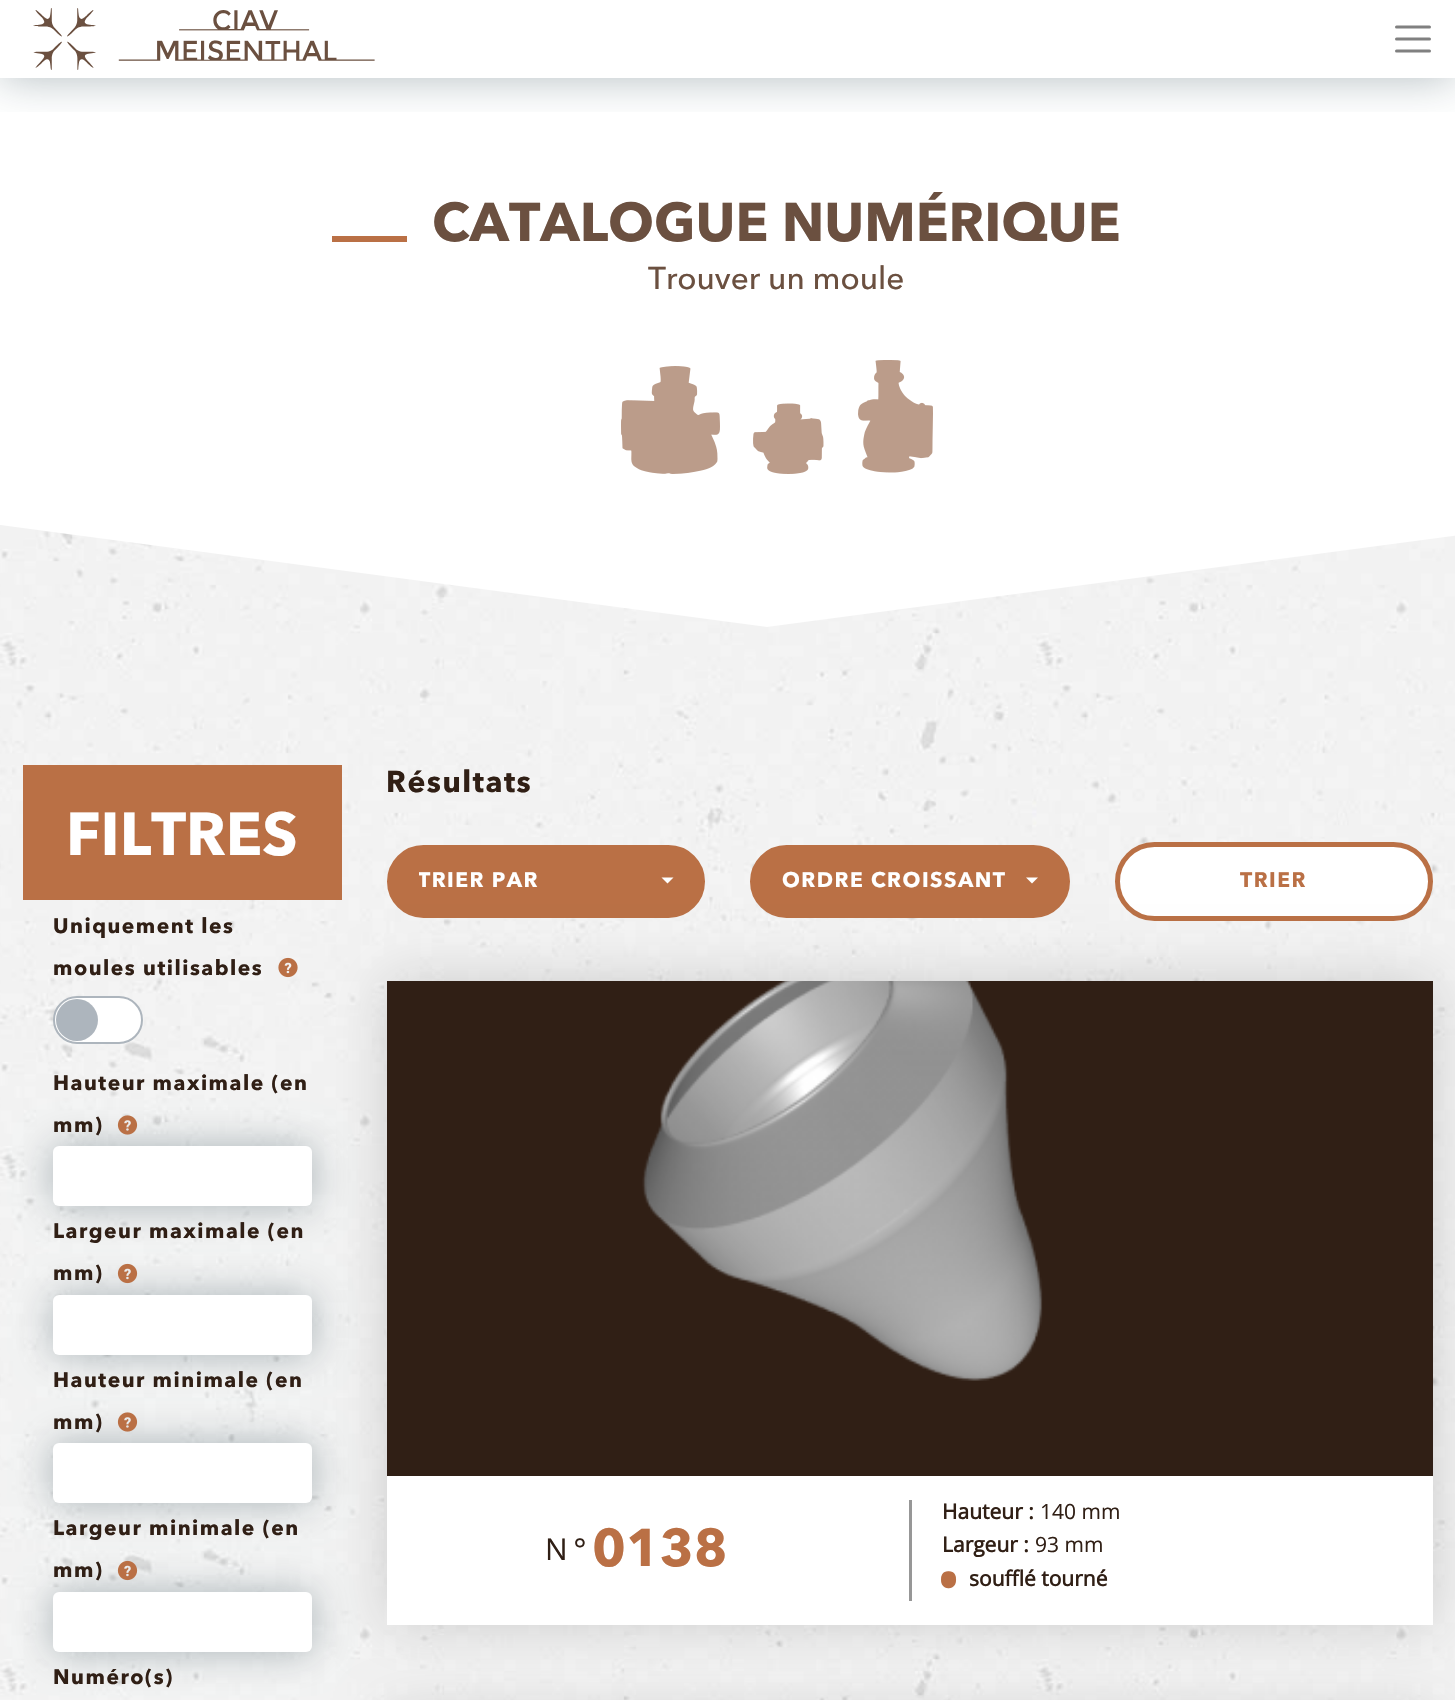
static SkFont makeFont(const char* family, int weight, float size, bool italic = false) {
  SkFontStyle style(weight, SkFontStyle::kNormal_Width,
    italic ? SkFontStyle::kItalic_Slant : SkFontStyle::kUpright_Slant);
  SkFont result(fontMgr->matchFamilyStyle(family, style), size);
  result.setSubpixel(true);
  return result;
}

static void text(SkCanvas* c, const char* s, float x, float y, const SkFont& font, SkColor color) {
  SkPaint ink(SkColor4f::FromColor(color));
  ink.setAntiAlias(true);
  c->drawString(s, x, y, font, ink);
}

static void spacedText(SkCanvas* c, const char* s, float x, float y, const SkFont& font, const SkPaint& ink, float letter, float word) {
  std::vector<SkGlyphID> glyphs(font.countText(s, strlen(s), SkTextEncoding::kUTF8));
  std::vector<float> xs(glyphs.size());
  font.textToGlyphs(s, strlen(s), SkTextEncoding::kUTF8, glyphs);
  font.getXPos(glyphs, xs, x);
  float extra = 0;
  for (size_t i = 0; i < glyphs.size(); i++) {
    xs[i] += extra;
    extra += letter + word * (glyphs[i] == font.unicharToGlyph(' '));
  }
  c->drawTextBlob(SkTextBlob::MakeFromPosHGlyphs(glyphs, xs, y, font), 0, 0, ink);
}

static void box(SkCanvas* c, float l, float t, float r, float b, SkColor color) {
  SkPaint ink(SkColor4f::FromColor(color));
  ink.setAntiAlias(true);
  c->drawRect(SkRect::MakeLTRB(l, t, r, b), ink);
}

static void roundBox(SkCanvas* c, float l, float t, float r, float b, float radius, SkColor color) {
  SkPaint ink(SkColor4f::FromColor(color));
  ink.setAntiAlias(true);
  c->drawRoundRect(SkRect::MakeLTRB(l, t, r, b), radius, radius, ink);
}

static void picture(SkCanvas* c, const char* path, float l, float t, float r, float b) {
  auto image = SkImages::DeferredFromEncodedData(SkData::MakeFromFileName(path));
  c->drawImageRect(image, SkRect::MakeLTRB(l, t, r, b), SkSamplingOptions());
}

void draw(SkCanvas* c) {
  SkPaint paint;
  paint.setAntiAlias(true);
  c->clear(0xffffffff);
  picture(c, "img_01.png", 0, 525, 1455, 1700);
  c->save();
  c->clipRect(SkRect::MakeLTRB(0, 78, 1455, 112));
  paint.setColor(0x4d001f2b);
  paint.setMaskFilter(SkMaskFilter::MakeBlur(kNormal_SkBlurStyle, 22.5f));
  c->drawRect(SkRect::MakeLTRB(0, 0, 1455, 78), paint);
  paint.setMaskFilter(nullptr);
  c->restore();
  picture(c, "img_02.png", 33, 8, 375, 70);
  paint.setStyle(SkPaint::kStroke_Style);
  paint.setStrokeWidth(3);
  paint.setStrokeCap(SkPaint::kRound_Cap);
  paint.setColor(0xff808080);
  c->drawPath(SkPathBuilder().moveTo(1396.5f, 27).lineTo(1429.5f, 27).moveTo(1396.5f, 39).lineTo(1429.5f, 39).moveTo(1396.5f, 51).lineTo(1429.5f, 51).detach(), paint);
  box(c, 332, 236, 407, 242, 0xffba7045);
  SkFont face1 = makeFont("Avenir Next", 700, 54);
  text(c, "CATALOGUE NUMÉRIQUE", 432, 241, face1, 0xff6b5040);
  SkFont face2 = makeFont("Avenir Next", 500, 31.5f);
  text(c, "Trouver un moule", 648, 289, face2, 0xff6b5040);
  picture(c, "img_03.png", 621, 360, 933, 474);
  paint.setStyle(SkPaint::kFill_Style);
  paint.setColor(0xffffffff);
  c->drawPath(SkPathBuilder(SkPathFillType::kEvenOdd).moveTo(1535, 525).lineTo(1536, 525).lineTo(767, 627).lineTo(0, 525).close().detach(), paint);
  box(c, 23, 765, 342, 900, 0xffba7045);
  SkFont face3 = makeFont("Avenir Next", 700, 60);
  text(c, "FILTRES", 66, 855, face3, 0xffffffff);
  SkFont face4 = makeFont("Avenir Next", 700, 21);
  paint.setColor(0xff301f15);
  spacedText(c, "Uniquement les", 53, 933, face4, paint, 1.5f, 0);
  spacedText(c, "moules utilisables", 53, 975, face4, paint, 1.5f, 0);
  picture(c, "img_04.png", 278, 957, 298, 978);
  paint.setColor(0xffffffff);
  c->drawRoundRect(SkRect::MakeLTRB(54, 997, 142, 1043), 23, 23, paint);
  paint.setStyle(SkPaint::kStroke_Style);
  paint.setStrokeWidth(2);
  paint.setStrokeCap(SkPaint::kButt_Cap);
  paint.setColor(0xffadb5bd);
  c->drawRoundRect(SkRect::MakeLTRB(54, 997, 142, 1043), 23, 23, paint);
  paint.setStyle(SkPaint::kFill_Style);
  c->drawCircle(77, 1020, 21, paint);
  paint.setColor(0x4d001f2b);
  paint.setMaskFilter(SkMaskFilter::MakeBlur(kNormal_SkBlurStyle, 19));
  c->drawRoundRect(SkRect::MakeLTRB(53, 1146, 312, 1206), 6, 6, paint);
  paint.setMaskFilter(nullptr);
  paint.setColor(0xff301f15);
  spacedText(c, "Hauteur maximale (en", 53, 1090, face4, paint, 1.5f, 0);
  spacedText(c, "mm)", 53, 1132, face4, paint, 1.5f, 0);
  picture(c, "img_05.png", 117, 1115, 138, 1135);
  roundBox(c, 53, 1146, 312, 1206, 6, 0xffffffff);
  paint.setColor(0x4d001f2b);
  paint.setMaskFilter(SkMaskFilter::MakeBlur(kNormal_SkBlurStyle, 19));
  c->drawRoundRect(SkRect::MakeLTRB(53, 1295, 312, 1355), 6, 6, paint);
  paint.setMaskFilter(nullptr);
  paint.setColor(0xff301f15);
  spacedText(c, "Largeur maximale (en", 53, 1238, face4, paint, 1.5f, 0);
  spacedText(c, "mm)", 53, 1280, face4, paint, 1.5f, 0);
  picture(c, "img_06.png", 117, 1263, 138, 1284);
  roundBox(c, 53, 1295, 312, 1355, 6, 0xffffffff);
  paint.setColor(0x4d001f2b);
  paint.setMaskFilter(SkMaskFilter::MakeBlur(kNormal_SkBlurStyle, 19));
  c->drawRoundRect(SkRect::MakeLTRB(53, 1443, 312, 1503), 6, 6, paint);
  paint.setMaskFilter(nullptr);
  paint.setColor(0xff301f15);
  spacedText(c, "Hauteur minimale (en", 53, 1387, face4, paint, 1.5f, 0);
  spacedText(c, "mm)", 53, 1429, face4, paint, 1.5f, 0);
  picture(c, "img_07.png", 117, 1412, 138, 1432);
  roundBox(c, 53, 1443, 312, 1503, 6, 0xffffffff);
  paint.setColor(0x4d001f2b);
  paint.setMaskFilter(SkMaskFilter::MakeBlur(kNormal_SkBlurStyle, 19));
  c->drawRoundRect(SkRect::MakeLTRB(53, 1592, 312, 1652), 6, 6, paint);
  paint.setMaskFilter(nullptr);
  paint.setColor(0xff301f15);
  spacedText(c, "Largeur minimale (en", 53, 1535, face4, paint, 1.5f, 0);
  spacedText(c, "mm)", 53, 1577, face4, paint, 1.5f, 0);
  picture(c, "img_08.png", 117, 1560, 138, 1581);
  roundBox(c, 53, 1592, 312, 1652, 6, 0xffffffff);
  spacedText(c, "Numéro(s)", 53, 1684, face4, paint, 1.5f, 0);
  SkFont face5 = makeFont("Avenir Next", 700, 30);
  spacedText(c, "Résultats", 386, 792, face5, paint, 1.5f, 0);
  paint.setColor(0xffba7045);
  c->drawRoundRect(SkRect::MakeLTRB(388, 846, 704, 917), 35.5f, 35.5f, paint);
  paint.setStyle(SkPaint::kStroke_Style);
  c->drawRoundRect(SkRect::MakeLTRB(388, 846, 704, 917), 35.5f, 35.5f, paint);
  c->save();
  c->clipRect(SkRect::MakeLTRB(419, 867, 656, 896));
  paint.setStyle(SkPaint::kFill_Style);
  paint.setColor(0xffffffff);
  spacedText(c, "TRIER PAR", 418, 887, face4, paint, 1.5f, 0);
  c->restore();
  c->drawPath(SkPathBuilder().moveTo(661.5f, 877.5f).lineTo(673.5f, 877.5f).lineTo(667.5f, 883.5f).close().detach(), paint);
  paint.setColor(0xffba7045);
  c->drawRoundRect(SkRect::MakeLTRB(751, 846, 1069, 917), 35.5f, 35.5f, paint);
  paint.setStyle(SkPaint::kStroke_Style);
  c->drawRoundRect(SkRect::MakeLTRB(751, 846, 1069, 917), 35.5f, 35.5f, paint);
  paint.setStyle(SkPaint::kFill_Style);
  paint.setColor(0xffffffff);
  spacedText(c, "ORDRE CROISSANT", 782, 887, face4, paint, 1.5f, 0);
  c->drawPath(SkPathBuilder().moveTo(1026, 877.5f).lineTo(1038, 877.5f).lineTo(1032, 883.5f).close().detach(), paint);
  c->drawRoundRect(SkRect::MakeLTRB(1117.5f, 844.5f, 1430.5f, 918.5f), 37, 37, paint);
  paint.setStyle(SkPaint::kStroke_Style);
  paint.setStrokeWidth(5);
  paint.setColor(0xffba7045);
  c->drawRoundRect(SkRect::MakeLTRB(1117.5f, 844.5f, 1430.5f, 918.5f), 37, 37, paint);
  paint.setStyle(SkPaint::kFill_Style);
  spacedText(c, "TRIER", 1240, 887, face4, paint, 1.5f, 0);
  paint.setColor(0x29000000);
  paint.setMaskFilter(SkMaskFilter::MakeBlur(kNormal_SkBlurStyle, 26));
  c->drawRect(SkRect::MakeLTRB(387, 981, 1433, 1625), paint);
  paint.setMaskFilter(nullptr);
  box(c, 387, 1476, 1433, 1625, 0xffffffff);
  box(c, 387, 981, 1433, 1476, 0xff301f15);
  picture(c, "img_09.png", 642, 981, 1043, 1381);
  SkFont face6 = makeFont("Open Sans", 400, 30);
  paint.setColor(0xff301f15);
  spacedText(c, "N°", 545, 1560, face6, paint, 6, 0);
  SkFont face7 = makeFont("Avenir Next", 700, 52.5f);
  text(c, "0138", 592, 1566, face7, 0xffba7045);
  box(c, 909, 1500, 912, 1601, 0xff979797);
  SkFont face8 = makeFont("Open Sans", 700, 21);
  text(c, "Hauteur :", 942, 1519, face8, 0xff301f15);
  SkFont face9 = makeFont("Open Sans", 400, 21);
  text(c, "140 mm", 1040, 1519, face9, 0xff301f15);
  text(c, "Largeur :", 942, 1552, face8, 0xff301f15);
  text(c, "93 mm", 1035, 1552, face9, 0xff301f15);
  SkFont face10 = makeFont("Open Sans", 400, 72);
  text(c, "•", 935, 1606, face10, 0xffba7045);
  text(c, "soufflé tourné", 969, 1586, face8, 0xff301f15);
  paint.setColor(0x29000000);
  paint.setMaskFilter(SkMaskFilter::MakeBlur(kNormal_SkBlurStyle, 26));
  c->drawRect(SkRect::MakeLTRB(387, 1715, 1433, 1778), paint);
  paint.setMaskFilter(nullptr);
}
